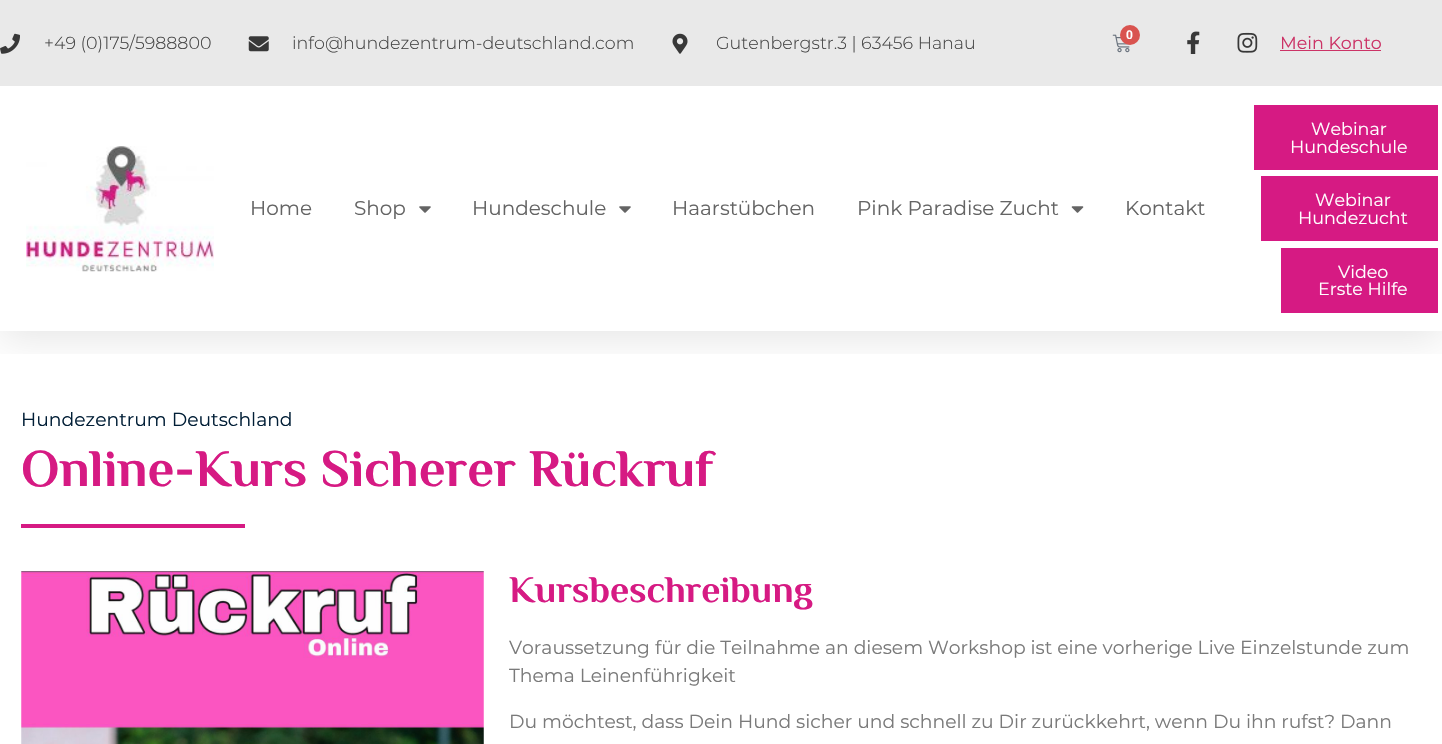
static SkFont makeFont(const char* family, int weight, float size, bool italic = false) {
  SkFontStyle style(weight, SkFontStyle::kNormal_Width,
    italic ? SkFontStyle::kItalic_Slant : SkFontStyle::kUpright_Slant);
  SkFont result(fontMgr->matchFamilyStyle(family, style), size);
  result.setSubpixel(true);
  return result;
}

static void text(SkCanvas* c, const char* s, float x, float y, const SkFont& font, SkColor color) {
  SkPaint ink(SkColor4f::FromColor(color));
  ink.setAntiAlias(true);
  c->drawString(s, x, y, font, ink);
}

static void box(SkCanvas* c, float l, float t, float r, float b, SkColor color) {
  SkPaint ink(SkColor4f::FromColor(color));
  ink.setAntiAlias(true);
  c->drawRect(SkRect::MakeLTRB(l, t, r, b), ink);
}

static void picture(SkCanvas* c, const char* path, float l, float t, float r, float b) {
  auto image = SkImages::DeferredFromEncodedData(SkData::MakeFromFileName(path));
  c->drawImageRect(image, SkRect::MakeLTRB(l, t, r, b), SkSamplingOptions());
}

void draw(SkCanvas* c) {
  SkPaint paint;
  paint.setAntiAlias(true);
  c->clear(0xffffffff);
  c->save();
  c->clipRect(SkRect::MakeLTRB(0, 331, 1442, 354));
  paint.setColor(0x1a000000);
  paint.setMaskFilter(SkMaskFilter::MakeBlur(kNormal_SkBlurStyle, 19));
  c->drawRect(SkRect::MakeLTRB(0, 6, 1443, 338), paint);
  paint.setMaskFilter(nullptr);
  c->restore();
  box(c, 0, 0, 1442, 86, 0xffe9e9e9);
  picture(c, "img_01.png", 0, 33, 20, 54);
  SkFont face1 = makeFont("Montserrat", 300, 17.5f);
  text(c, "+49 (0)175/5988800", 44, 49, face1, 0xff454545);
  picture(c, "img_02.png", 248, 36, 269, 52);
  text(c, "info@hundezentrum-deutschland.com", 292, 49, face1, 0xff454545);
  picture(c, "img_03.png", 672, 33, 688, 54);
  text(c, "Gutenbergstr.3 | 63456 Hanau", 716, 49, face1, 0xff454545);
  picture(c, "img_04.png", 1112, 34, 1130, 53);
  paint.setColor(0xffd9534f);
  c->drawCircle(1130, 35, 10, paint);
  SkFont face2 = makeFont("Roboto", 600, 12);
  text(c, "0", 1126, 39, face2, 0xffffffff);
  picture(c, "img_05.png", 1187, 31, 1200, 54);
  picture(c, "img_06.png", 1237, 32, 1258, 53);
  SkFont face3 = makeFont("Montserrat", 400, 17.5f);
  text(c, "Mein Konto", 1280, 49, face3, 0xffcc3366);
  box(c, 1280, 50, 1381, 51, 0xffcc3366);
  picture(c, "img_07.png", 26, 146, 214, 272);
  SkFont face4 = makeFont("Montserrat", 400, 20);
  text(c, "Home", 250, 215, face4, 0xff646464);
  text(c, "Shop", 354, 215, face4, 0xff646464);
  picture(c, "img_08.png", 419, 206, 431, 213);
  text(c, "Hundeschule", 472, 215, face4, 0xff646464);
  picture(c, "img_08.png", 619, 206, 631, 213);
  text(c, "Haarstübchen", 672, 215, face4, 0xff646464);
  text(c, "Pink Paradise Zucht", 857, 215, face4, 0xff646464);
  picture(c, "img_09.png", 1071, 206, 1084, 213);
  text(c, "Kontakt", 1125, 215, face4, 0xff646464);
  box(c, 1254, 105, 1438, 170, 0xffd61a83);
  text(c, "Webinar", 1311, 135, face3, 0xffffffff);
  text(c, "Hundeschule", 1290, 153, face3, 0xffffffff);
  box(c, 1261, 176, 1438, 241, 0xffd61a83);
  text(c, "Webinar", 1315, 206, face3, 0xffffffff);
  text(c, "Hundezucht", 1298, 224, face3, 0xffffffff);
  box(c, 1281, 248, 1438, 313, 0xffd61a83);
  text(c, "Video", 1338, 278, face3, 0xffffffff);
  text(c, "Erste Hilfe", 1318, 295, face3, 0xffffffff);
  SkFont face5 = makeFont("Montserrat", 400, 18.75f);
  text(c, "Hundezentrum Deutschland", 21, 426, face5, 0xff011e36);
  SkFont face6 = makeFont("Philosopher", 700, 52.5f);
  text(c, "Online-Kurs Sicherer Rückruf", 21, 486, face6, 0xffd61a83);
  box(c, 21, 524, 245, 528, 0xffd61a83);
  picture(c, "img_10.png", 21, 571, 484, 744);
  SkFont face7 = makeFont("Philosopher", 700, 37.5f);
  text(c, "Kursbeschreibung", 509, 602, face7, 0xffd61a83);
  text(c, "Voraussetzung für die Teilnahme an diesem Workshop ist eine vorherige Live Einzelstunde zum", 509, 654, face5, 0xff7a7a7a);
  text(c, "Thema Leinenführigkeit", 509, 682, face5, 0xff7a7a7a);
  text(c, "Du möchtest, dass Dein Hund sicher und schnell zu Dir zurückkehrt, wenn Du ihn rufst? Dann", 509, 728, face5, 0xff7a7a7a);
}
